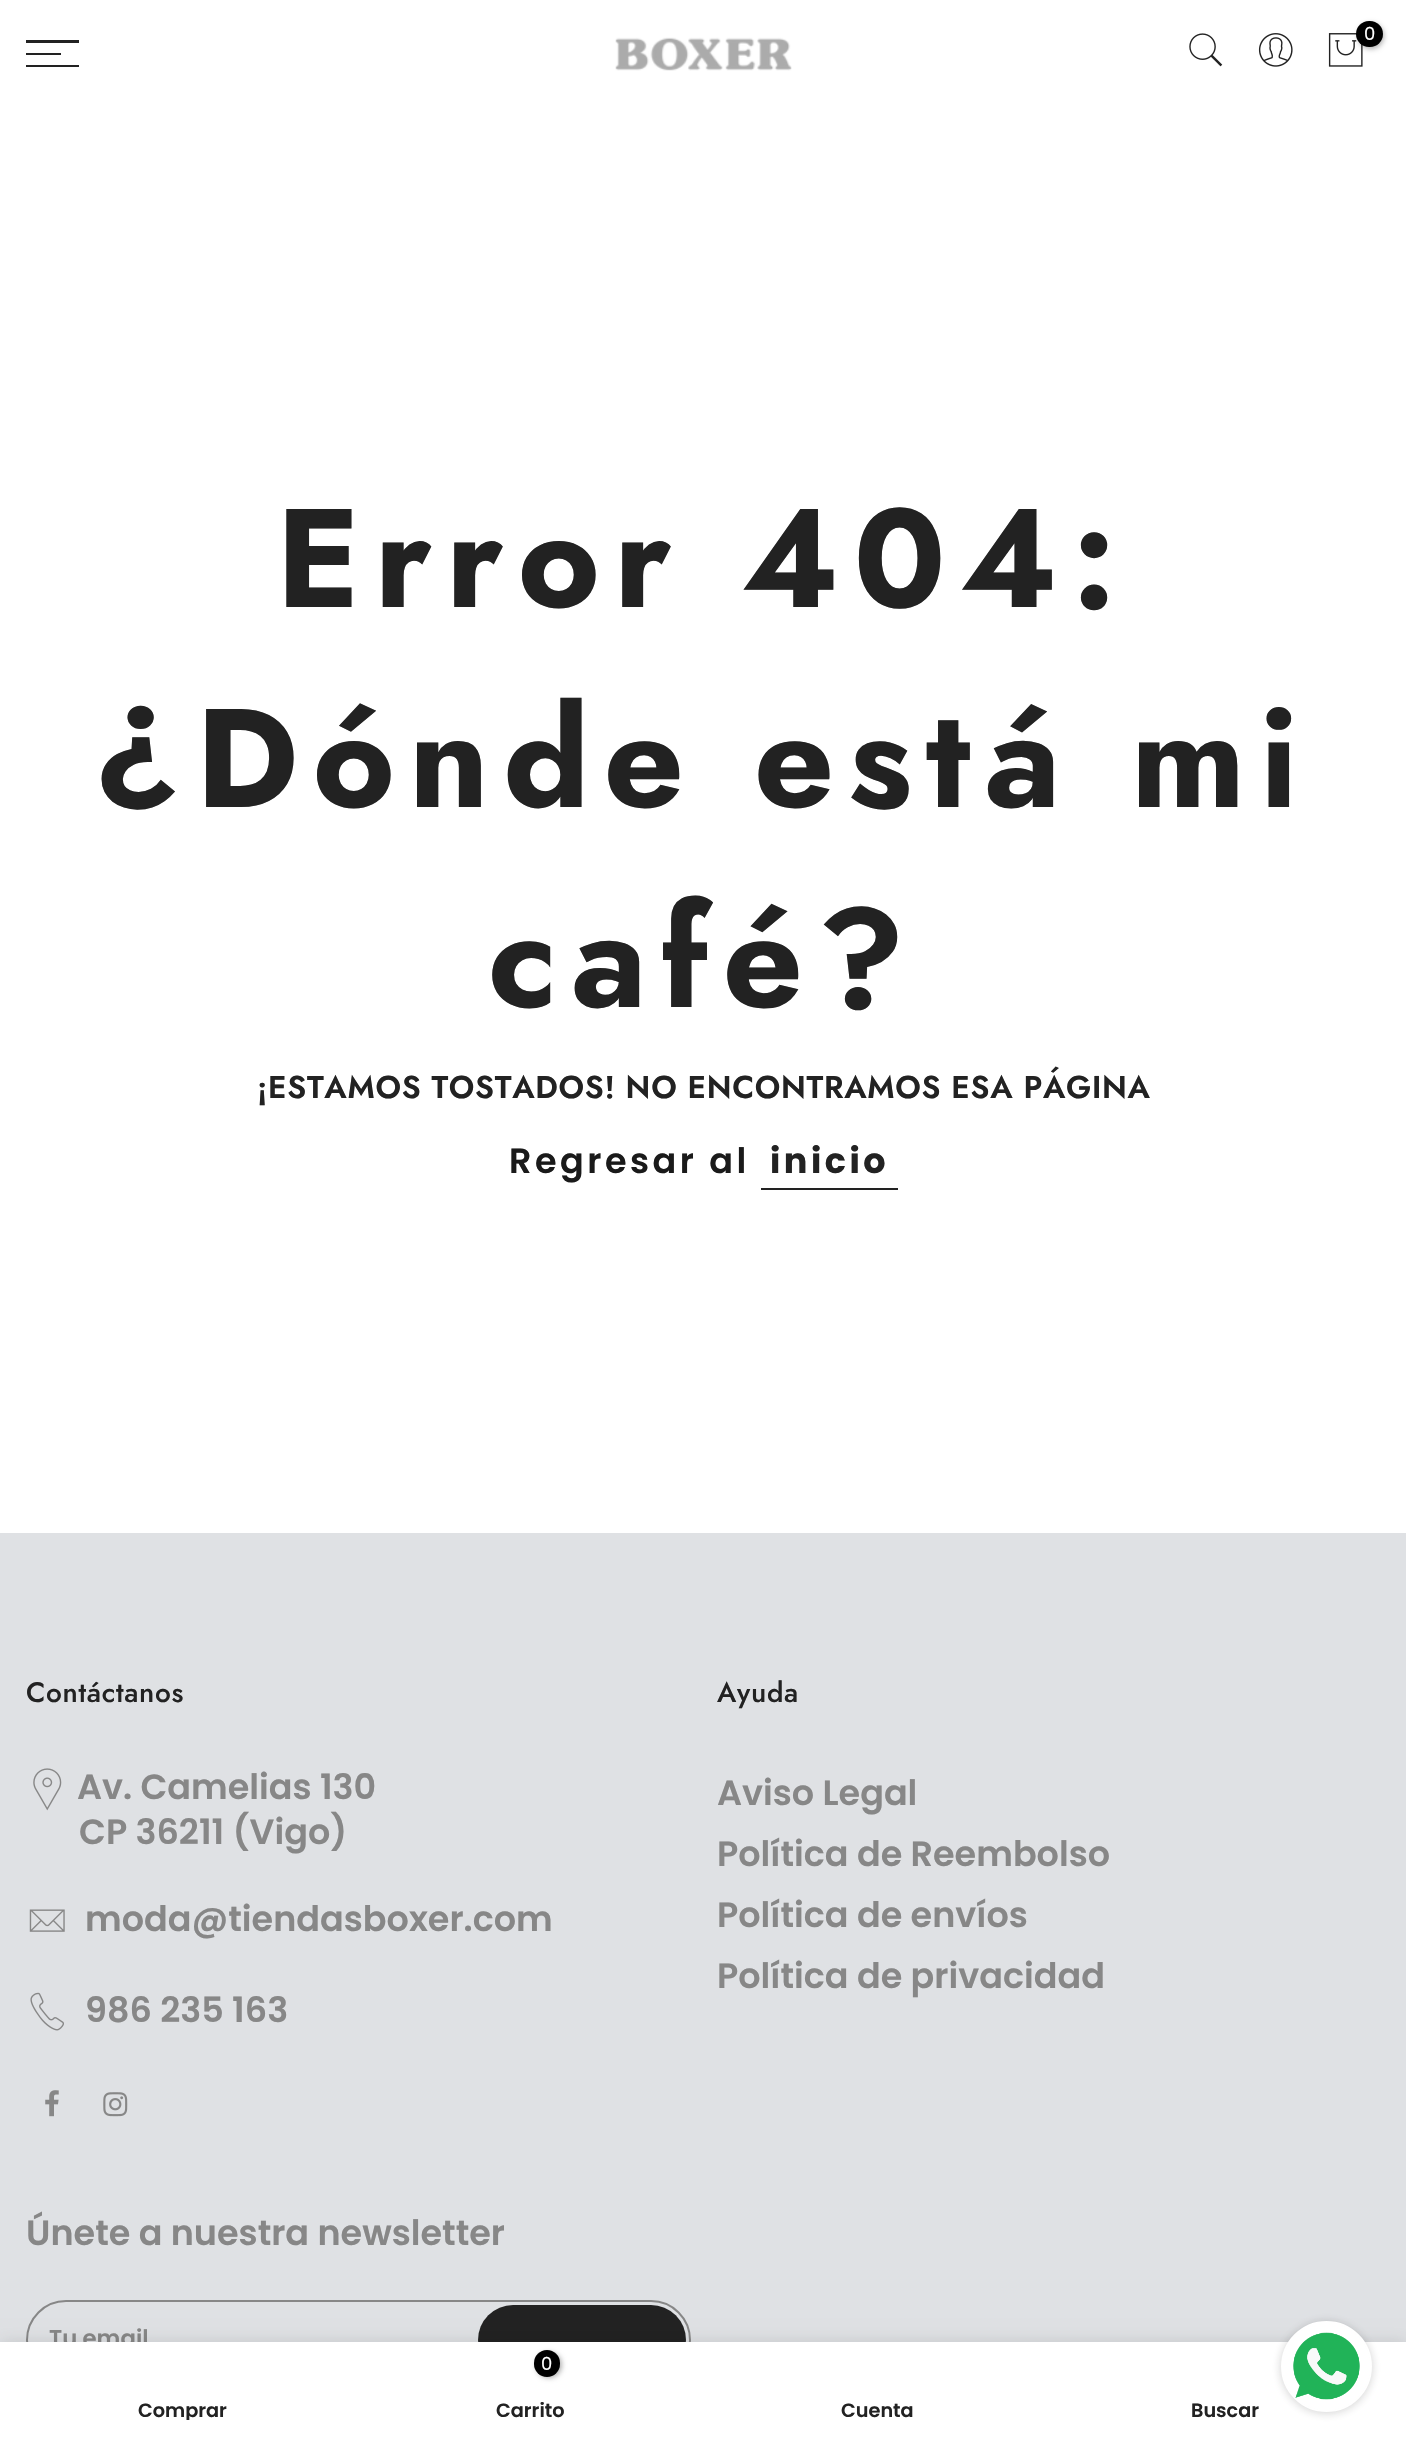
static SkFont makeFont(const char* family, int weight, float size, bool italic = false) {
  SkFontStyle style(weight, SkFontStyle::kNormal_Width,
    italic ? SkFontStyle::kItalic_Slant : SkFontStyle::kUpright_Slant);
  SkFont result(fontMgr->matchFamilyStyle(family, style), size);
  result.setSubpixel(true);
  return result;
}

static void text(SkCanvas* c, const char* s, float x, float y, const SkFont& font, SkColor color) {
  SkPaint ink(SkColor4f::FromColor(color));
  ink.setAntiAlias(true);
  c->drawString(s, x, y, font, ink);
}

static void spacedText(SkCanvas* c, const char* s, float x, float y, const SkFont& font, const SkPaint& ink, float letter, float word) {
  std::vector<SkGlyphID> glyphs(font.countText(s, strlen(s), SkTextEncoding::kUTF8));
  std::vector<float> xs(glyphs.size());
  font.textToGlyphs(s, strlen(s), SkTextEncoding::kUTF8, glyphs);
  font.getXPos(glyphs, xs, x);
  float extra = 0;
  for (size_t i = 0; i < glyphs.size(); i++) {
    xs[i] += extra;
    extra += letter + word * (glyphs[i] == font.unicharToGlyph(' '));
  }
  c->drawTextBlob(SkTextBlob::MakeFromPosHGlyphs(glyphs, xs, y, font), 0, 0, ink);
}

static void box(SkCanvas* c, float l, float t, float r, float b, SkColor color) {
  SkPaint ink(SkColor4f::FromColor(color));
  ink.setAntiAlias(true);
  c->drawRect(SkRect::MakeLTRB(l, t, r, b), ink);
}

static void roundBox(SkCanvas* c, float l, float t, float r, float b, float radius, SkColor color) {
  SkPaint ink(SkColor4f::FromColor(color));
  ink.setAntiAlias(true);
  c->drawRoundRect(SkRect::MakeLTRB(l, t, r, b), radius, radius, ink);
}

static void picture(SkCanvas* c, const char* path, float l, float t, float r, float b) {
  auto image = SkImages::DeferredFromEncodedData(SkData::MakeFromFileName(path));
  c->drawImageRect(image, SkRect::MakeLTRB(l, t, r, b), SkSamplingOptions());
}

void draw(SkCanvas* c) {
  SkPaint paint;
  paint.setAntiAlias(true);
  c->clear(0xffffffff);
  picture(c, "img_01.png", 1189, 33, 1223, 67);
  picture(c, "img_02.png", 1258, 33, 1293, 67);
  picture(c, "img_03.png", 1328, 33, 1363, 67);
  paint.setColor(0x4d000000);
  paint.setMaskFilter(SkMaskFilter::MakeBlur(kNormal_SkBlurStyle, 2.5f));
  c->drawRoundRect(SkRect::MakeLTRB(1358, 23, 1384, 49), 13, 13, paint);
  paint.setMaskFilter(nullptr);
  roundBox(c, 1356, 21, 1383, 47, 13, 0xff000000);
  SkFont face1 = makeFont("Poppins", 400, 18);
  text(c, "0", 1364, 40, face1, 0xffffffff);
  box(c, 26, 40, 79, 43, 0xff222222);
  box(c, 26, 53, 61, 55, 0xff222222);
  box(c, 26, 65, 79, 67, 0xff222222);
  picture(c, "img_04.png", 615, 37, 792, 71);
  SkFont face2 = makeFont("Jost", 700, 140);
  paint.setColor(0xff222222);
  spacedText(c, "Error 404:", 276, 607, face2, paint, 14, 0);
  spacedText(c, "¿Dónde está mi", 94, 807, face2, paint, 14, 0);
  spacedText(c, "café?", 488, 1007, face2, paint, 14, 0);
  SkFont face3 = makeFont("Jost", 600, 31.5f);
  spacedText(c, "¡ESTAMOS TOSTADOS! NO ENCONTRAMOS ESA PÁGINA", 257, 1098, face3, paint, 0.7f, 0);
  SkFont face4 = makeFont("Poppins", 600, 35);
  paint.setColor(0xff1a1a1a);
  spacedText(c, "Regresar al", 509, 1173, face4, paint, 3.5f, 0);
  SkFont face5 = makeFont("Poppins", 700, 35);
  paint.setColor(0xff222222);
  spacedText(c, "inicio", 770, 1173, face5, paint, 3.5f, 0);
  box(c, 761, 1188, 898, 1190, 0xff222222);
  box(c, 0, 1533, 1406, 2342, 0xffdfe1e4);
  SkFont face6 = makeFont("Jost", 500, 28);
  spacedText(c, "Contáctanos", 26, 1702, face6, paint, 0.7f, 0);
  picture(c, "img_05.png", 33, 1768, 62, 1811);
  text(c, "Av. Camelias 130", 77, 1799, face4, 0xff878787);
  text(c, "CP 36211 (Vigo)", 79, 1844, face4, 0xff878787);
  picture(c, "img_06.png", 29, 1909, 65, 1932);
  text(c, "moda@tiendasboxer.com", 85, 1931, face4, 0xff878787);
  picture(c, "img_07.png", 30, 1992, 64, 2031);
  text(c, "986 235 163", 85, 2022, face4, 0xff878787);
  picture(c, "img_08.png", 45, 2090, 59, 2117);
  picture(c, "img_09.png", 103, 2092, 128, 2117);
  spacedText(c, "Ayuda", 717, 1702, face6, paint, 0.7f, 0);
  text(c, "Aviso Legal", 717, 1805, face4, 0xff878787);
  text(c, "Política de Reembolso", 717, 1866, face4, 0xff878787);
  text(c, "Política de envíos", 717, 1927, face4, 0xff878787);
  text(c, "Política de privacidad", 717, 1988, face4, 0xff878787);
  text(c, "Únete a nuestra newsletter", 26, 2245, face4, 0xff878787);
  paint.setStyle(SkPaint::kStroke_Style);
  paint.setStrokeWidth(2);
  paint.setColor(0xff878787);
  c->drawRoundRect(SkRect::MakeLTRB(27, 2301, 690, 2379), 39, 39, paint);
  SkFont face7 = makeFont("Poppins", 600, 22.75f);
  text(c, "Tu email", 49, 2346, face7, 0xff878787);
  roundBox(c, 478, 2305, 686, 2375, 35, 0xff222222);
  paint.setStyle(SkPaint::kFill_Style);
  paint.setColor(0x1f000000);
  paint.setMaskFilter(SkMaskFilter::MakeBlur(kNormal_SkBlurStyle, 8));
  c->drawRect(SkRect::MakeLTRB(0, 2342, 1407, 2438), paint);
  paint.setMaskFilter(nullptr);
  box(c, 0, 2342, 1406, 2437, 0xffffffff);
  c->save();
  c->clipRect(SkRect::MakeLTRB(26, 2401, 340, 2420));
  SkFont face8 = makeFont("Poppins", 600, 19.25f);
  text(c, "Comprar", 138, 2417, face8, 0xff222222);
  c->restore();
  paint.setColor(0x4d000000);
  paint.setMaskFilter(SkMaskFilter::MakeBlur(kNormal_SkBlurStyle, 2.5f));
  c->drawRoundRect(SkRect::MakeLTRB(536, 2352, 562, 2378), 13, 13, paint);
  paint.setMaskFilter(nullptr);
  roundBox(c, 534, 2350, 560, 2377, 13, 0xff000000);
  text(c, "0", 541, 2370, face1, 0xffffffff);
  text(c, "Carrito", 496, 2417, face8, 0xff222222);
  text(c, "Cuenta", 841, 2417, face8, 0xff222222);
  text(c, "Buscar", 1191, 2417, face8, 0xff222222);
  paint.setColor(0x331b1b1b);
  paint.setMaskFilter(SkMaskFilter::MakeBlur(kNormal_SkBlurStyle, 5));
  c->drawRoundRect(SkRect::MakeLTRB(1281, 2322, 1372, 2413), 45.5f, 45.5f, paint);
  paint.setMaskFilter(nullptr);
  paint.setColor(0xffffffff);
  c->drawCircle(1326.5f, 2366.5f, 44.5f, paint);
  paint.setStyle(SkPaint::kStroke_Style);
  c->drawCircle(1326.5f, 2366.5f, 44.5f, paint);
  picture(c, "img_10.png", 1293, 2332, 1360, 2400);
}
